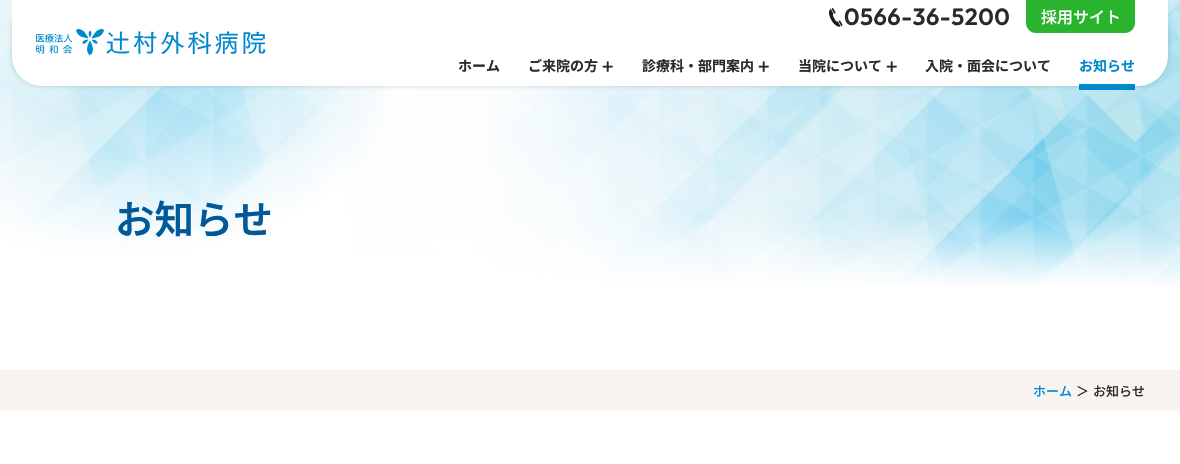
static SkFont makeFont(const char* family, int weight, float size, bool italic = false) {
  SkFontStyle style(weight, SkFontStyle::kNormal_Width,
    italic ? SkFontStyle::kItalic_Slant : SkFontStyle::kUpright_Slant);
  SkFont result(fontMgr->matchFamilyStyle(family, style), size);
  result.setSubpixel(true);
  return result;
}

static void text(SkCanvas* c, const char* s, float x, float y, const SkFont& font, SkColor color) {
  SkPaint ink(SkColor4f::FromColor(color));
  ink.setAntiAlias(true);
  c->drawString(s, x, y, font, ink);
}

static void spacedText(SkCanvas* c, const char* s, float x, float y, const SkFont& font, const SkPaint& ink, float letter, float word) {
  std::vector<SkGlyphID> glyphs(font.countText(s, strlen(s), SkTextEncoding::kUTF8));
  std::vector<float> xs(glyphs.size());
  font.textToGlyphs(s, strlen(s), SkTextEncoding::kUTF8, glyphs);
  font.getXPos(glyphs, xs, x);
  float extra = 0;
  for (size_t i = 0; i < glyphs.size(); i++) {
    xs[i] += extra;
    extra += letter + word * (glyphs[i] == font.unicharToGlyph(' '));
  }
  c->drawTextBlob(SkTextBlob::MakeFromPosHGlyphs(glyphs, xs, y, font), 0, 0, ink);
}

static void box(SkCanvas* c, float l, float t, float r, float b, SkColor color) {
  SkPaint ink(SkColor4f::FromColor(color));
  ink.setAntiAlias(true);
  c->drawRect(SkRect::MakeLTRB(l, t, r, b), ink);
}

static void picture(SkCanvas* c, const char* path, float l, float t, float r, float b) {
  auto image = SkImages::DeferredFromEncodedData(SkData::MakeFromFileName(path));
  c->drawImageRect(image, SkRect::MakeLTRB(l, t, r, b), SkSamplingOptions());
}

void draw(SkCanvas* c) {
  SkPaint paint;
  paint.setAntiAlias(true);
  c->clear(0xffffffff);
  picture(c, "img_03.png", 0, 0, 1180, 286);
  paint.setColor(0x2b000000);
  paint.setMaskFilter(SkMaskFilter::MakeBlur(kNormal_SkBlurStyle, 2));
  c->drawRoundRect(SkRect::MakeLTRB(12, 0, 1168, 86), 30, 30, paint);
  paint.setMaskFilter(nullptr);
  paint.setColor(0xffffffff);
  c->drawPath(SkPathBuilder().moveTo(12, 0).lineTo(1168, 0).lineTo(1168, 56).cubicTo(1168, 72.5f, 1154.5f, 86, 1138, 86).lineTo(42, 86).cubicTo(25.5f, 86, 12, 72.5f, 12, 56).close().detach(), paint);
  picture(c, "img_01.png", 36, 29, 266, 55);
  picture(c, "img_02.png", 829, 8, 843, 27);
  SkFont face1 = makeFont("Outfit", 600, 23.5f);
  paint.setColor(0xff2a2a2a);
  spacedText(c, "0566-36-5200", 844, 25, face1, paint, 0.5f, 0);
  paint.setColor(0xff2ab32d);
  c->drawPath(SkPathBuilder().moveTo(1026, 0).lineTo(1135, 0).lineTo(1135, 23).cubicTo(1135, 28.5f, 1130.5f, 33, 1125, 33).lineTo(1036, 33).cubicTo(1030.5f, 33, 1026, 28.5f, 1026, 23).close().detach(), paint);
  SkFont face2 = makeFont("Noto Sans JP", 500, 16);
  text(c, "採用サイト", 1041, 23, face2, 0xffffffff);
  SkFont face3 = makeFont("Noto Sans JP", 700, 14);
  text(c, "ホーム", 458, 71, face3, 0xff2a2a2a);
  text(c, "ご来院の方", 528, 71, face3, 0xff2a2a2a);
  SkFont face4 = makeFont("Noto Sans JP", 500, 20);
  text(c, "+", 602, 74, face4, 0xff2a2a2a);
  text(c, "診療科・部門案内", 642, 71, face3, 0xff2a2a2a);
  text(c, "+", 758, 74, face4, 0xff2a2a2a);
  text(c, "当院について", 798, 71, face3, 0xff2a2a2a);
  text(c, "+", 886, 74, face4, 0xff2a2a2a);
  text(c, "入院・面会について", 925, 71, face3, 0xff2a2a2a);
  text(c, "お知らせ", 1079, 71, face3, 0xff0088cd);
  box(c, 1079, 84, 1135, 90, 0xff0088cd);
  SkFont face5 = makeFont("Noto Sans JP", 600, 39.5f);
  text(c, "お知らせ", 115, 234, face5, 0xff005998);
  box(c, 0, 370, 1180, 411, 0xfff7f4f2);
  SkFont face6 = makeFont("Noto Sans JP", 500, 13);
  text(c, "ホーム", 1033, 396, face6, 0xff0088cd);
  text(c, "＞", 1076, 396, face6, 0xff2a2a2a);
  text(c, "お知らせ", 1093, 396, face6, 0xff2a2a2a);
}
